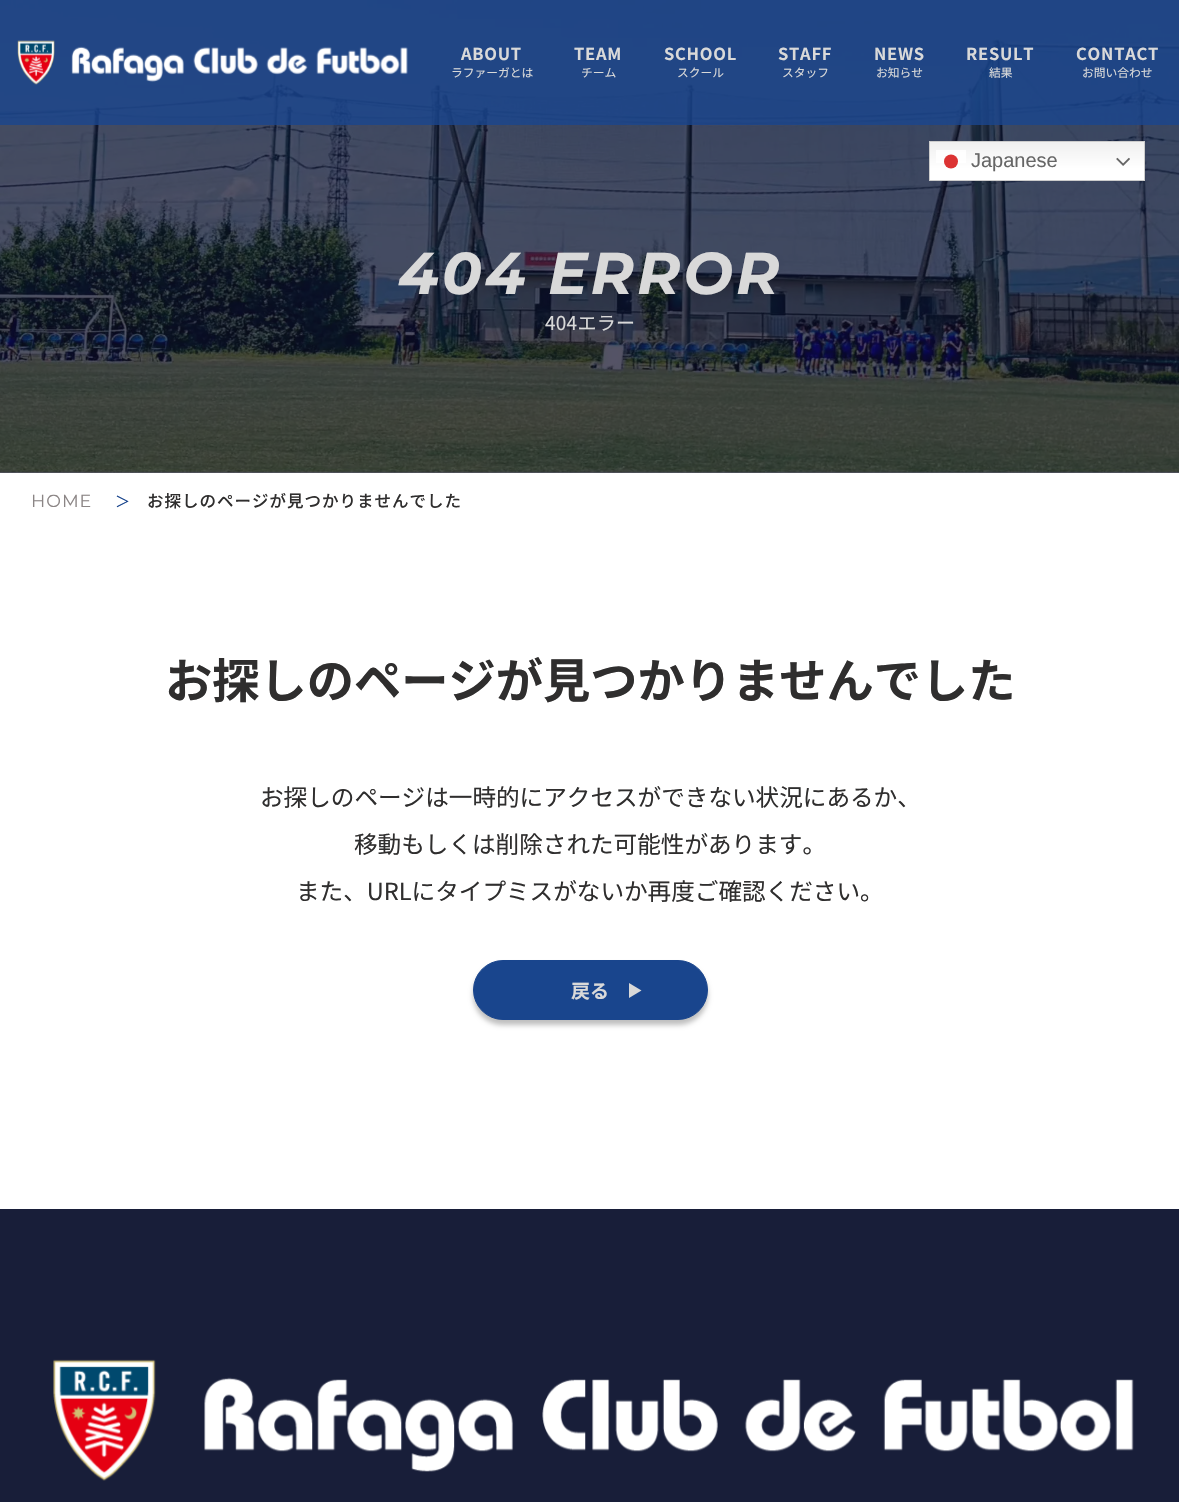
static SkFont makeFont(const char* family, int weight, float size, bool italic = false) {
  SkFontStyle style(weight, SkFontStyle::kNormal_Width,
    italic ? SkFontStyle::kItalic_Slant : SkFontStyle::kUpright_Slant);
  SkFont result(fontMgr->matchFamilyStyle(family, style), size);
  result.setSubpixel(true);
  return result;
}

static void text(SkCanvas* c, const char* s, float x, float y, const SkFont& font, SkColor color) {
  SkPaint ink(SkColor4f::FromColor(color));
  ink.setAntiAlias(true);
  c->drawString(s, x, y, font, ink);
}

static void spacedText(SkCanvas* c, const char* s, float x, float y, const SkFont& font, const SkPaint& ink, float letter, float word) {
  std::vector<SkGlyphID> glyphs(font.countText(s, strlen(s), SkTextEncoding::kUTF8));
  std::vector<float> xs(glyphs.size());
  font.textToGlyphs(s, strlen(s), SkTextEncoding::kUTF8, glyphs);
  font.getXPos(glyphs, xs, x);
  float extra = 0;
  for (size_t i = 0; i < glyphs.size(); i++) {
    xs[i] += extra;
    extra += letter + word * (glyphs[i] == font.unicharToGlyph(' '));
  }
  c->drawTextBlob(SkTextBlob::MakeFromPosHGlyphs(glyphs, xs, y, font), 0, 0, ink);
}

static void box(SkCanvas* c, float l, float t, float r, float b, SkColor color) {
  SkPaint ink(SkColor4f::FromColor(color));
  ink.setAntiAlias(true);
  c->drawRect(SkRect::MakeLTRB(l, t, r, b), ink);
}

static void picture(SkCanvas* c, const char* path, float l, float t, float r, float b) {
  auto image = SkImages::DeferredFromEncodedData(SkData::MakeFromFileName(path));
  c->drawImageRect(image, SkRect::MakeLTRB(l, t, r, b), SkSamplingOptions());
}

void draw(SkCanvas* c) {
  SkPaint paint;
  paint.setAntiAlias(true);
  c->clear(0xffffffff);
  box(c, 0, 472, 1179, 473, 0xff555466);
  picture(c, "img_02.png", 0, 0, 1179, 473);
  box(c, 0, 0, 1179, 125, 0xcc19458d);
  picture(c, "img_01.png", 17, 40, 408, 85);
  SkFont face1 = makeFont("Noto Sans JP", 700, 16.5f);
  paint.setColor(0xffd9d9d9);
  spacedText(c, "ABOUT", 461, 60, face1, paint, 0.75f, 0);
  SkFont face2 = makeFont("Noto Sans JP", 400, 11.75f);
  text(c, "ラファーガとは", 451, 77, face2, 0xffd9d9d9);
  spacedText(c, "TEAM", 574, 60, face1, paint, 0.75f, 0);
  text(c, "チーム", 581, 77, face2, 0xffd9d9d9);
  spacedText(c, "SCHOOL", 664, 60, face1, paint, 0.75f, 0);
  text(c, "スクール", 677, 77, face2, 0xffd9d9d9);
  spacedText(c, "STAFF", 778, 60, face1, paint, 0.75f, 0);
  text(c, "スタッフ", 782, 77, face2, 0xffd9d9d9);
  spacedText(c, "NEWS", 874, 60, face1, paint, 0.75f, 0);
  text(c, "お知らせ", 876, 77, face2, 0xffd9d9d9);
  spacedText(c, "RESULT", 966, 60, face1, paint, 0.75f, 0);
  text(c, "結果", 989, 77, face2, 0xffd9d9d9);
  spacedText(c, "CONTACT", 1076, 60, face1, paint, 0.75f, 0);
  text(c, "お問い合わせ", 1082, 77, face2, 0xffd9d9d9);
  {
    const SkColor colors[] = {0xffefefef, 0xffffffff};
    const float stops[] = {0, 0.7f};
    const SkPoint ends[] = {{1037, 141}, {1037, 181}};
    paint.setShader(SkGradientShader::MakeLinear(ends, colors, stops, 2, SkTileMode::kClamp));
    paint.setAlpha(255);
  }
  c->drawRect(SkRect::MakeLTRB(930, 142, 1144, 180), paint);
  paint.setStyle(SkPaint::kStroke_Style);
  paint.setStrokeWidth(1);
  paint.setShader(nullptr);
  paint.setColor(0xffcccccc);
  c->drawRect(SkRect::MakeLTRB(929.5f, 141.5f, 1144.5f, 180.5f), paint);
  box(c, 936, 150, 966, 163, 0xccffffff);
  SkFont face3 = makeFont("Liberation Sans", 400, 20);
  text(c, "Japanese", 971, 167, face3, 0xff666666);
  paint.setStyle(SkPaint::kFill_Style);
  paint.setColor(0xffdc3333);
  c->drawCircle(951, 161.5f, 7, paint);
  picture(c, "img_03.png", 1116, 157, 1130, 166);
  SkFont face4 = makeFont("Montserrat", 700, 59, true);
  paint.setColor(0xffd9d9d9);
  spacedText(c, "404 ERROR", 398, 294, face4, paint, 3, 0);
  SkFont face5 = makeFont("Noto Sans JP", 400, 19);
  spacedText(c, "404エラー", 545, 330, face5, paint, 0.25f, 0);
  SkFont face6 = makeFont("Montserrat", 400, 17.5f);
  paint.setColor(0xff8b8585);
  spacedText(c, "HOME", 31, 507, face6, paint, 1, 0);
  SkFont face7 = makeFont("Noto Sans JP", 400, 15);
  paint.setColor(0xff19458d);
  spacedText(c, "＞", 115, 507, face7, paint, 1, 0);
  SkFont face8 = makeFont("Noto Sans JP", 500, 16.5f);
  paint.setColor(0xff2f2e2e);
  spacedText(c, "お探しのページが見つかりませんでした", 147, 507, face8, paint, 1, 0);
  SkFont face9 = makeFont("Noto Sans JP", 700, 47.25f);
  text(c, "お探しのページが見つかりませんでした", 165, 698, face9, 0xff2f2e2e);
  SkFont face10 = makeFont("Noto Sans JP", 400, 23.6f);
  text(c, "お探しのページは一時的にアクセスができない状況にあるか、", 260, 806, face10, 0xff2f2e2e);
  text(c, "移動もしくは削除された可能性があります。", 354, 853, face10, 0xff2f2e2e);
  text(c, "また、URLにタイプミスがないか再度ご確認ください。", 296, 900, face10, 0xff2f2e2e);
  paint.setColor(0x40000000);
  paint.setMaskFilter(SkMaskFilter::MakeBlur(kNormal_SkBlurStyle, 2.5f));
  c->drawRoundRect(SkRect::MakeLTRB(473, 965, 708, 1025), 30, 30, paint);
  paint.setMaskFilter(nullptr);
  paint.setColor(0xff19458d);
  c->drawRoundRect(SkRect::MakeLTRB(473.5f, 960.5f, 707.5f, 1019.5f), 29.5f, 29.5f, paint);
  paint.setStyle(SkPaint::kStroke_Style);
  c->drawRoundRect(SkRect::MakeLTRB(473.5f, 960.5f, 707.5f, 1019.5f), 29.5f, 29.5f, paint);
  SkFont face11 = makeFont("Noto Sans JP", 700, 19);
  text(c, "戻る", 571, 998, face11, 0xffd9d9d9);
  paint.setStyle(SkPaint::kFill_Style);
  paint.setColor(0xffd9d9d9);
  c->drawPath(SkPathBuilder().moveTo(641.5f, 990.5f).lineTo(629, 998).lineTo(629, 983).close().detach(), paint);
  box(c, 0, 1209, 1179, 1502, 0xff181e39);
  picture(c, "img_04.png", 53, 1359, 1134, 1481);
}
